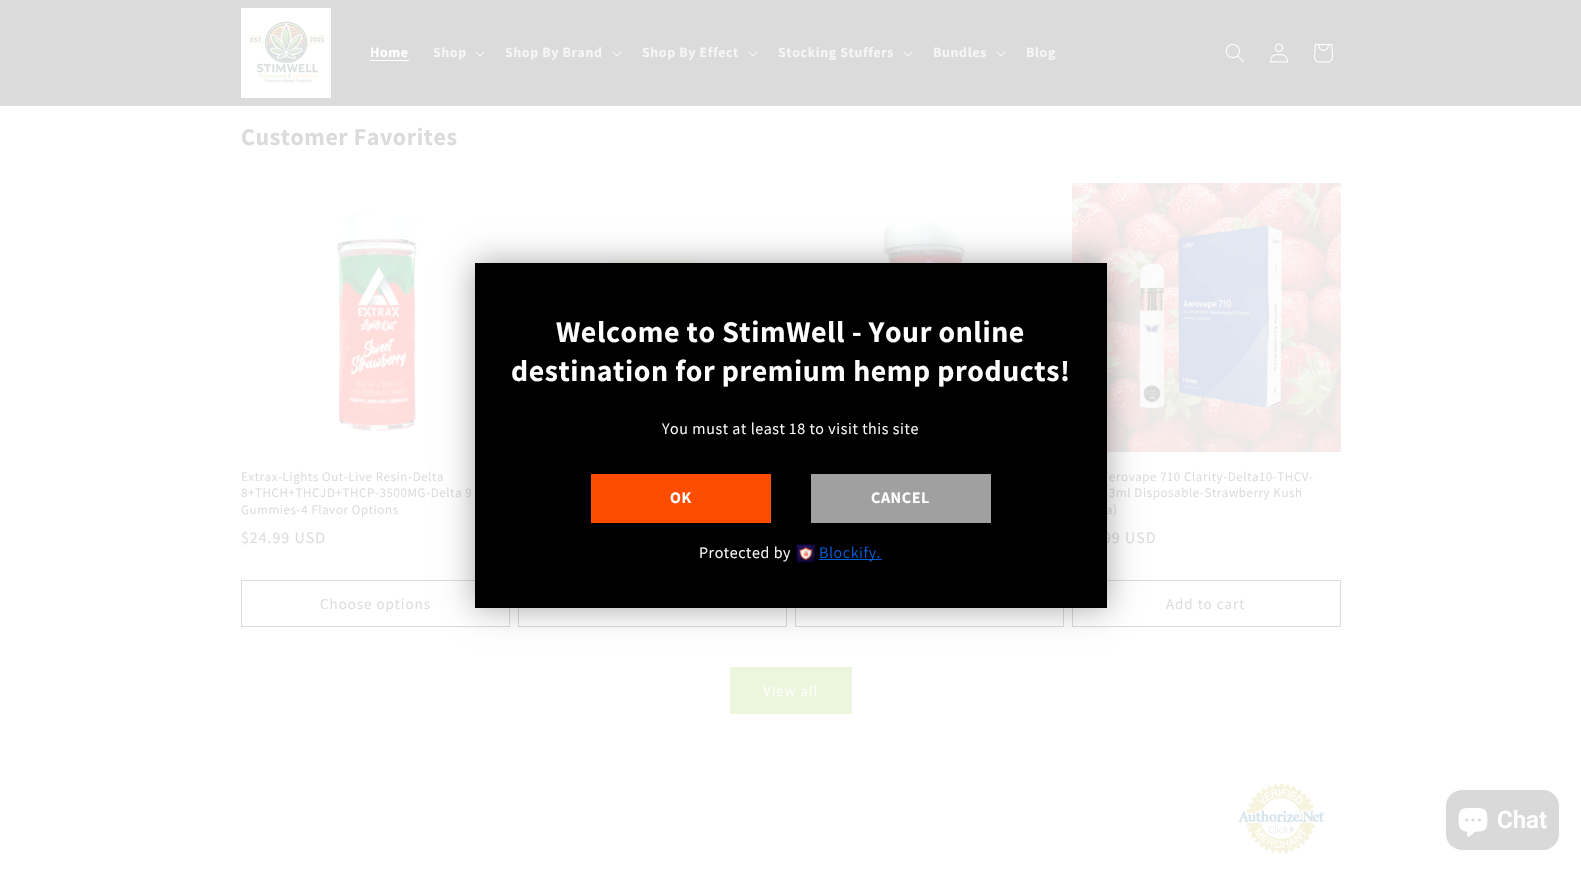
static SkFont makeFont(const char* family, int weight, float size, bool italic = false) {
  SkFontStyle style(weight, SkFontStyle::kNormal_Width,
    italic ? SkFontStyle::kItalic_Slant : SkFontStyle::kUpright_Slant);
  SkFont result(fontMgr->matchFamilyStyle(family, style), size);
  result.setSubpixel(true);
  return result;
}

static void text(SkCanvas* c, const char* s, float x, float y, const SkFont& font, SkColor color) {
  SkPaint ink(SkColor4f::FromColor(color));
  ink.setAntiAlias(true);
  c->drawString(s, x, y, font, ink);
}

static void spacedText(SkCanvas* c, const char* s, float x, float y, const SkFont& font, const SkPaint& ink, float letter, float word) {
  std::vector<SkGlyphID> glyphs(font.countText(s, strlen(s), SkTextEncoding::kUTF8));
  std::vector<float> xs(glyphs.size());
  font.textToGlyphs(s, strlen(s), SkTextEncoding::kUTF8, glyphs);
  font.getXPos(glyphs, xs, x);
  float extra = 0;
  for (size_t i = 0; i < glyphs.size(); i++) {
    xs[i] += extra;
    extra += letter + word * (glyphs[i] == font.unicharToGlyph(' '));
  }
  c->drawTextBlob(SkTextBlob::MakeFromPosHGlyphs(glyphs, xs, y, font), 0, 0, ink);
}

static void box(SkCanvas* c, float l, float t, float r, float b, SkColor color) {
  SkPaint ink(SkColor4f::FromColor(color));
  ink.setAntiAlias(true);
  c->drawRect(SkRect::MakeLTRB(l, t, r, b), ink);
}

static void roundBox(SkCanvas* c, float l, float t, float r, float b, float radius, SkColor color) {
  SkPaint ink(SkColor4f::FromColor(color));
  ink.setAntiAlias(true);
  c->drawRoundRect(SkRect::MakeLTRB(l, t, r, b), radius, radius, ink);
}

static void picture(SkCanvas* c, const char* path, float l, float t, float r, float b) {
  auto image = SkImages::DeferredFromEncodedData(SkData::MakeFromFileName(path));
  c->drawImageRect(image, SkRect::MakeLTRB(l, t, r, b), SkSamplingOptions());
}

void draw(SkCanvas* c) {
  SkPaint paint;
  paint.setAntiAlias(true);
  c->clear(0xffffffff);
  box(c, 0, 0, 1581, 105, 0xffdbdbdb);
  box(c, 0, 105, 1581, 106, 0xffdedede);
  picture(c, "img_01.png", 241, 8, 331, 98);
  SkFont face1 = makeFont("Assistant", 700, 14);
  paint.setColor(0xffffffff);
  spacedText(c, "Home", 370, 57, face1, paint, 0.6f, 0);
  box(c, 370, 60, 409, 61, 0xffffffff);
  paint.setColor(0xfff6f6f6);
  spacedText(c, "Shop", 433, 57, face1, paint, 0.6f, 0);
  picture(c, "img_02.png", 475, 51, 485, 57);
  spacedText(c, "Shop By Brand", 505, 57, face1, paint, 0.6f, 0);
  picture(c, "img_02.png", 612, 51, 622, 57);
  spacedText(c, "Shop By Effect", 642, 57, face1, paint, 0.6f, 0);
  picture(c, "img_02.png", 748, 51, 758, 57);
  spacedText(c, "Stocking Stuffers", 778, 57, face1, paint, 0.6f, 0);
  picture(c, "img_02.png", 903, 51, 913, 57);
  spacedText(c, "Bundles", 933, 57, face1, paint, 0.6f, 0);
  picture(c, "img_02.png", 996, 51, 1006, 57);
  spacedText(c, "Blog", 1026, 57, face1, paint, 0.6f, 0);
  picture(c, "img_03.png", 1225, 43, 1244, 63);
  picture(c, "img_04.png", 1270, 43, 1288, 63);
  picture(c, "img_05.png", 1314, 44, 1334, 63);
  SkFont face2 = makeFont("Assistant", 700, 24);
  paint.setColor(0xffdbdbdb);
  spacedText(c, "Customer Favorites", 241, 145, face2, paint, 0.6f, 0);
  picture(c, "img_06.png", 334, 213, 419, 431);
  SkFont face3 = makeFont("Assistant", 400, 13);
  spacedText(c, "Extrax-Lights Out-Live Resin-Delta", 241, 481, face3, paint, 0.6f, 0);
  spacedText(c, "8+THCH+THCJD+THCP-3500MG-Delta 9", 241, 497, face3, paint, 0.6f, 0);
  spacedText(c, "Gummies-4 Flavor Options", 241, 514, face3, paint, 0.6f, 0);
  SkFont face4 = makeFont("Assistant", 400, 16);
  spacedText(c, "$24.99 USD", 241, 543, face4, paint, 1, 0);
  paint.setStyle(SkPaint::kStroke_Style);
  paint.setStrokeWidth(1);
  c->drawRect(SkRect::MakeLTRB(241.5f, 580.5f, 509.5f, 626.5f), paint);
  SkFont face5 = makeFont("Assistant", 400, 15);
  paint.setStyle(SkPaint::kFill_Style);
  spacedText(c, "Choose options", 320, 609, face5, paint, 1, 0);
  picture(c, "img_07.png", 609, 261, 700, 263);
  paint.setStyle(SkPaint::kStroke_Style);
  c->drawRect(SkRect::MakeLTRB(518.5f, 580.5f, 786.5f, 626.5f), paint);
  picture(c, "img_08.png", 883, 222, 967, 263);
  c->drawRect(SkRect::MakeLTRB(795.5f, 580.5f, 1063.5f, 626.5f), paint);
  picture(c, "img_09.png", 1072, 183, 1341, 452);
  paint.setStyle(SkPaint::kFill_Style);
  spacedText(c, "erovape 710 Clarity-Delta10-THCV-", 1109, 481, face3, paint, 0.6f, 0);
  spacedText(c, "3ml Disposable-Strawberry Kush", 1109, 497, face3, paint, 0.6f, 0);
  spacedText(c, "a)", 1106, 514, face3, paint, 0.6f, 0);
  spacedText(c, "99 USD", 1103, 543, face4, paint, 1, 0);
  paint.setStyle(SkPaint::kStroke_Style);
  c->drawRect(SkRect::MakeLTRB(1072.5f, 580.5f, 1340.5f, 626.5f), paint);
  paint.setStyle(SkPaint::kFill_Style);
  spacedText(c, "Add to cart", 1166, 609, face5, paint, 1, 0);
  box(c, 730, 667, 852, 714, 0xffecf6dd);
  paint.setColor(0xffffffff);
  spacedText(c, "View all", 763, 696, face5, paint, 1, 0);
  paint.setColor(0x59000000);
  paint.setMaskFilter(SkMaskFilter::MakeBlur(kNormal_SkBlurStyle, 15));
  c->drawRect(SkRect::MakeLTRB(475, 263, 1107, 608), paint);
  paint.setMaskFilter(nullptr);
  box(c, 475, 263, 1107, 608, 0xff000000);
  SkFont face6 = makeFont("Assistant", 700, 30);
  paint.setColor(0xffffffff);
  spacedText(c, "Welcome to StimWell - Your online", 556, 342, face6, paint, 0.6f, 0);
  spacedText(c, "destination for premium hemp products!", 511, 381, face6, paint, 0.6f, 0);
  spacedText(c, "You must at least 18 to visit this site", 662, 434, face4, paint, 0.6f, 0);
  box(c, 591, 474, 771, 523, 0xfffe4d01);
  SkFont face7 = makeFont("Assistant", 700, 16);
  spacedText(c, "OK", 670, 503, face7, paint, 0.6f, 0);
  box(c, 811, 474, 991, 523, 0xffa0a0a0);
  spacedText(c, "CANCEL", 871, 503, face7, paint, 0.6f, 0);
  spacedText(c, "Protected by", 699, 558, face4, paint, 0.6f, 0);
  picture(c, "img_10.png", 796, 544, 816, 563);
  box(c, 819, 559, 882, 560, 0xff005bd3);
  paint.setColor(0xff005bd3);
  spacedText(c, "Blockify.", 819, 558, face4, paint, 0.6f, 0);
  picture(c, "img_11.png", 1238, 784, 1324, 853);
  roundBox(c, 1446, 790, 1559, 850, 16, 0xffd9d9d9);
  picture(c, "img_12.png", 1458, 808, 1488, 837);
  SkFont face8 = makeFont("Roboto", 600, 24);
  text(c, "Chat", 1497, 828, face8, 0xffffffff);
}
